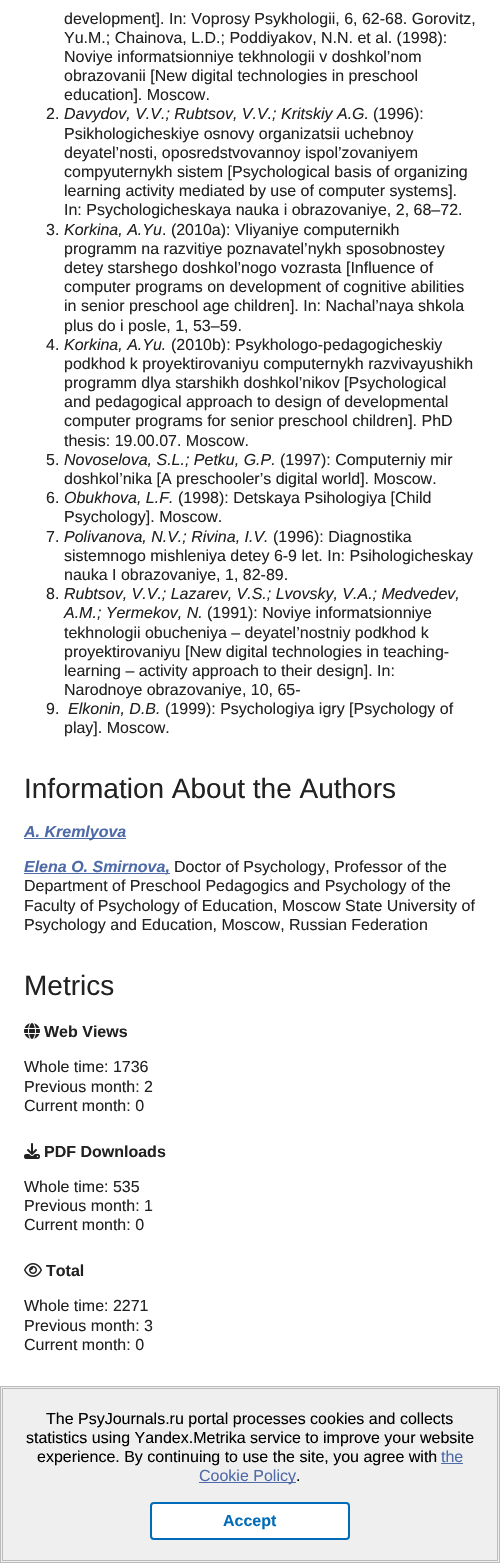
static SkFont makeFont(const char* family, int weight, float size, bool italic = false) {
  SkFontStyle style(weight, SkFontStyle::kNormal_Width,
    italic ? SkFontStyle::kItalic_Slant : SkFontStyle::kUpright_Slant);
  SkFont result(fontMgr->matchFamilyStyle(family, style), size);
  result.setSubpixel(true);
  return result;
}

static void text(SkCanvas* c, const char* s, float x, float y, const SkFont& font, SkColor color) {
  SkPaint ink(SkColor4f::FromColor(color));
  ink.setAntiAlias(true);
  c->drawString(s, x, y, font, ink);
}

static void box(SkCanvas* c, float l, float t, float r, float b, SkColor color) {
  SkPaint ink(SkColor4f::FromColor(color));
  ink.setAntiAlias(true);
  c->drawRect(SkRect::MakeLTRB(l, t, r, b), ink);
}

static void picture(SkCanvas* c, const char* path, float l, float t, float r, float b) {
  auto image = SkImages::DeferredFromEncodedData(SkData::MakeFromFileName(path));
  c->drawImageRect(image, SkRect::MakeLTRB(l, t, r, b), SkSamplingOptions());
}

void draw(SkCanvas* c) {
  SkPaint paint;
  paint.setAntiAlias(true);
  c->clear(0xffffffff);
  SkFont face1 = makeFont("Liberation Sans", 400, 16);
  text(c, "development]. In: Voprosy Psykhologii, 6, 62-68. Gorovitz,", 64, 24, face1, 0xff222222);
  text(c, "Yu.M.; Chainova, L.D.; Poddiyakov, N.N. et al. (1998):", 64, 43, face1, 0xff222222);
  text(c, "Noviye informatsionniye tekhnologii v doshkol’nom", 64, 62, face1, 0xff222222);
  text(c, "obrazovanii [New digital technologies in preschool", 64, 81, face1, 0xff222222);
  text(c, "education]. Moscow.", 64, 100, face1, 0xff222222);
  text(c, "2.", 46, 119, face1, 0xff222222);
  SkFont face2 = makeFont("Liberation Sans", 400, 16, true);
  text(c, "Davydov, V.V.; Rubtsov, V.V.; Kritskiy A.G.", 64, 119, face2, 0xff222222);
  text(c, "(1996):", 373, 119, face1, 0xff222222);
  text(c, "Psikhologicheskiye osnovy organizatsii uchebnoy", 64, 139, face1, 0xff222222);
  text(c, "deyatel’nosti, oposredstvovannoy ispol’zovaniyem", 64, 158, face1, 0xff222222);
  text(c, "compyuternykh sistem [Psychological basis of organizing", 64, 177, face1, 0xff222222);
  text(c, "learning activity mediated by use of computer systems].", 64, 196, face1, 0xff222222);
  text(c, "In: Psychologicheskaya nauka i obrazovaniye, 2, 68–72.", 64, 215, face1, 0xff222222);
  text(c, "3.", 46, 235, face1, 0xff222222);
  text(c, "Korkina, A.Yu", 64, 235, face2, 0xff222222);
  text(c, ". (2010a): Vliyaniye computernikh", 162, 235, face1, 0xff222222);
  text(c, "programm na razvitiye poznavatel’nykh sposobnostey", 64, 254, face1, 0xff222222);
  text(c, "detey starshego doshkol’nogo vozrasta [Influence of", 64, 273, face1, 0xff222222);
  text(c, "computer programs on development of cognitive abilities", 64, 292, face1, 0xff222222);
  text(c, "in senior preschool age children]. In: Nachal’naya shkola", 64, 311, face1, 0xff222222);
  text(c, "plus do i posle, 1, 53–59.", 64, 331, face1, 0xff222222);
  text(c, "4.", 46, 350, face1, 0xff222222);
  text(c, "Korkina, A.Yu.", 64, 350, face2, 0xff222222);
  text(c, "(2010b): Psykhologo-pedagogicheskiy", 171, 350, face1, 0xff222222);
  text(c, "podkhod k proyektirovaniyu computernykh razvivayushikh", 64, 369, face1, 0xff222222);
  text(c, "programm dlya starshikh doshkol’nikov [Psychological", 64, 388, face1, 0xff222222);
  text(c, "and pedagogical approach to design of developmental", 64, 407, face1, 0xff222222);
  text(c, "computer programs for senior preschool children]. PhD", 64, 426, face1, 0xff222222);
  text(c, "thesis: 19.00.07. Moscow.", 64, 446, face1, 0xff222222);
  text(c, "5.", 46, 465, face1, 0xff222222);
  text(c, "Novoselova, S.L.; Petku, G.P.", 64, 465, face2, 0xff222222);
  text(c, "(1997): Computerniy mir", 280, 465, face1, 0xff222222);
  text(c, "doshkol’nika [A preschooler’s digital world]. Moscow.", 64, 484, face1, 0xff222222);
  text(c, "6.", 46, 503, face1, 0xff222222);
  text(c, "Obukhova, L.F.", 64, 503, face2, 0xff222222);
  text(c, "(1998): Detskaya Psihologiya [Child", 178, 503, face1, 0xff222222);
  text(c, "Psychology]. Мoscow.", 64, 522, face1, 0xff222222);
  text(c, "7.", 46, 542, face1, 0xff222222);
  text(c, "Polivanova, N.V.; Rivina, I.V.", 64, 542, face2, 0xff222222);
  text(c, "(1996): Diagnostika", 273, 542, face1, 0xff222222);
  text(c, "sistemnogo mishleniya detey 6-9 let. In: Psihologicheskay", 64, 561, face1, 0xff222222);
  text(c, "nauka I obrazovaniye, 1, 82-89.", 64, 580, face1, 0xff222222);
  text(c, "8.", 46, 599, face1, 0xff222222);
  text(c, "Rubtsov, V.V.; Lazarev, V.S.; Lvovsky, V.A.; Medvedev,", 64, 599, face2, 0xff222222);
  text(c, "A.M.; Yermekov, N.", 64, 618, face2, 0xff222222);
  text(c, "(1991): Noviye informatsionniye", 207, 618, face1, 0xff222222);
  text(c, "tekhnologii obucheniya – deyatel’nostniy podkhod k", 64, 638, face1, 0xff222222);
  text(c, "proyektirovaniyu [New digital technologies in teaching-", 64, 657, face1, 0xff222222);
  text(c, "learning – activity approach to their design]. In:", 64, 676, face1, 0xff222222);
  text(c, "Narodnoye obrazovaniye, 10, 65-", 64, 695, face1, 0xff222222);
  text(c, "9.", 46, 714, face1, 0xff222222);
  text(c, "Elkonin, D.B.", 68, 714, face2, 0xff222222);
  text(c, "(1999): Psychologiya igry [Psychology of", 165, 714, face1, 0xff222222);
  text(c, "play]. Moscow.", 64, 733, face1, 0xff222222);
  SkFont face3 = makeFont("Liberation Sans", 400, 28);
  text(c, "Information About the Authors", 24, 798, face3, 0xff222222);
  box(c, 24, 838, 126, 839, 0xff4e6aa9);
  SkFont face4 = makeFont("Liberation Sans", 700, 16, true);
  text(c, "A. Kremlyova", 24, 837, face4, 0xff4e6aa9);
  box(c, 24, 873, 170, 874, 0xff4e6aa9);
  text(c, "Elena O. Smirnova,", 24, 872, face4, 0xff4e6aa9);
  text(c, "Doctor of Psychology, Рrofessor of the", 174, 872, face1, 0xff222222);
  text(c, "Department of Preschool Pedagogics and Psychology of the", 24, 891, face1, 0xff222222);
  text(c, "Faculty of Psychology of Education, Moscow State University of", 24, 911, face1, 0xff222222);
  text(c, "Psychology and Education, Moscow, Russian Federation", 24, 930, face1, 0xff222222);
  text(c, "Metrics", 24, 995, face3, 0xff222222);
  picture(c, "img_01.png", 24, 1023, 40, 1039);
  SkFont face5 = makeFont("Liberation Sans", 700, 16);
  text(c, "Web Views", 44, 1037, face5, 0xff222222);
  text(c, "Whole time: 1736", 24, 1072, face1, 0xff222222);
  text(c, "Previous month: 2", 24, 1092, face1, 0xff222222);
  text(c, "Current month: 0", 24, 1111, face1, 0xff222222);
  picture(c, "img_02.png", 24, 1143, 40, 1159);
  text(c, "PDF Downloads", 44, 1157, face5, 0xff222222);
  text(c, "Whole time: 535", 24, 1192, face1, 0xff222222);
  text(c, "Previous month: 1", 24, 1211, face1, 0xff222222);
  text(c, "Current month: 0", 24, 1230, face1, 0xff222222);
  picture(c, "img_03.png", 24, 1263, 42, 1277);
  text(c, "Total", 46, 1276, face5, 0xff222222);
  text(c, "Whole time: 2271", 24, 1311, face1, 0xff222222);
  text(c, "Previous month: 3", 24, 1331, face1, 0xff222222);
  text(c, "Current month: 0", 24, 1350, face1, 0xff222222);
  paint.setColor(0xffefefef);
  c->drawRect(SkRect::MakeLTRB(0.5f, 1386.5f, 499.5f, 1562.5f), paint);
  paint.setStyle(SkPaint::kStroke_Style);
  paint.setStrokeWidth(1);
  paint.setColor(0xffbdbabd);
  c->drawRect(SkRect::MakeLTRB(0.5f, 1386.5f, 499.5f, 1562.5f), paint);
  c->drawRect(SkRect::MakeLTRB(2.5f, 1388.5f, 497.5f, 1560.5f), paint);
  text(c, "The PsyJournals.ru portal processes cookies and collects", 46, 1424, face1, 0xff000000);
  text(c, "statistics using Yandex.Metrika service to improve your website", 26, 1443, face1, 0xff000000);
  text(c, "experience. By continuing to use the site, you agree with", 37, 1462, face1, 0xff000000);
  text(c, "the", 441, 1462, face1, 0xff4e6aa9);
  box(c, 441, 1463, 463, 1464, 0xff4e6aa9);
  box(c, 199, 1482, 296, 1483, 0xff4e6aa9);
  text(c, "Cookie Policy", 199, 1481, face1, 0xff4e6aa9);
  text(c, ".", 296, 1481, face1, 0xff000000);
  paint.setStyle(SkPaint::kFill_Style);
  paint.setColor(0xffffffff);
  c->drawRoundRect(SkRect::MakeLTRB(151, 1503, 349, 1539), 3, 3, paint);
  paint.setStyle(SkPaint::kStroke_Style);
  paint.setStrokeWidth(2);
  paint.setColor(0xff006cb7);
  c->drawRoundRect(SkRect::MakeLTRB(151, 1503, 349, 1539), 3, 3, paint);
  text(c, "Accept", 223, 1526, face5, 0xff006cb7);
}
